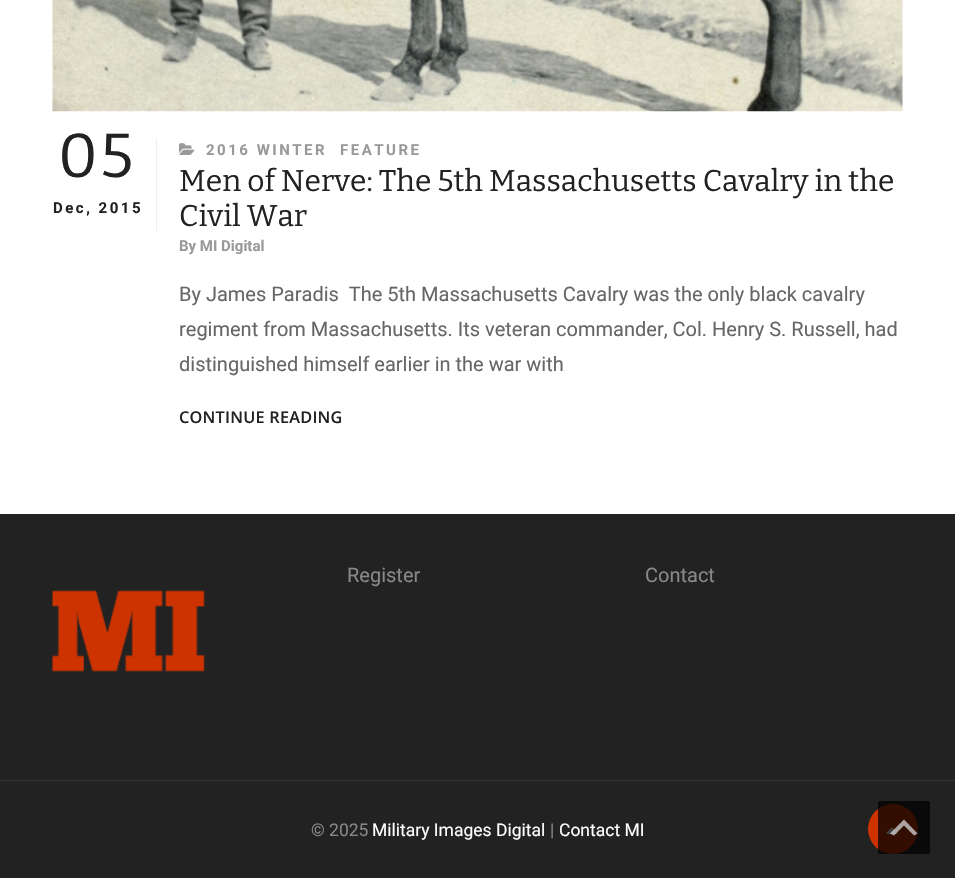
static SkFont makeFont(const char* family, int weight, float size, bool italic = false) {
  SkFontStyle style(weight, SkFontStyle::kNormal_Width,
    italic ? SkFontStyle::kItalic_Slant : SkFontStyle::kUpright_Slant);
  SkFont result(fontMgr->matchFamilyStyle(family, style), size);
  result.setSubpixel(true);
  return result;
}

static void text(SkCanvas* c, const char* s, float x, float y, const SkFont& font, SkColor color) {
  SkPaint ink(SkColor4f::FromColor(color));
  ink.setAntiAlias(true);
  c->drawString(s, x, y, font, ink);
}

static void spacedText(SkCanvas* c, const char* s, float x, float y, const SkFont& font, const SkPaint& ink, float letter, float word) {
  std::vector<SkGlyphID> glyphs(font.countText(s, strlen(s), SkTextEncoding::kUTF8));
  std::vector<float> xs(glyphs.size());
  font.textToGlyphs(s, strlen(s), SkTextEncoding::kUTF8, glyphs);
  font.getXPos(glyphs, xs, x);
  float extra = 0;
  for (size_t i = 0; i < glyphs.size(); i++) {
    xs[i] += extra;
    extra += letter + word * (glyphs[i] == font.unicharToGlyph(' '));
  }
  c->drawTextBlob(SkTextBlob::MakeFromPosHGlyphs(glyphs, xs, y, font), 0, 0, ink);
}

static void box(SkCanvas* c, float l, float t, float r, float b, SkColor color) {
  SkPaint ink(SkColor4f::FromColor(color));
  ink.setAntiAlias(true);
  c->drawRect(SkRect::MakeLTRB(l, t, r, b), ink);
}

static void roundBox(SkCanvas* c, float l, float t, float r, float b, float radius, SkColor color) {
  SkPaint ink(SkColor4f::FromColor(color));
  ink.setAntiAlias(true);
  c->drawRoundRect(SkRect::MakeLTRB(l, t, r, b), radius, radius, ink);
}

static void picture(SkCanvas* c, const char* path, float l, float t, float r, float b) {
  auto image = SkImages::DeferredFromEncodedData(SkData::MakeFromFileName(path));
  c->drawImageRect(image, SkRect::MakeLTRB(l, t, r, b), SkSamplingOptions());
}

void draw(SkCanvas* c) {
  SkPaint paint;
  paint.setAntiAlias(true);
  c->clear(0xffffffff);
  picture(c, "img_01.png", 52, 0, 903, 112);
  box(c, 156, 138, 157, 231, 0xffeeeeee);
  SkFont face1 = makeFont("Bitter", 400, 62);
  paint.setColor(0xff222222);
  spacedText(c, "05", 58, 177, face1, paint, 2.5f, 0);
  SkFont face2 = makeFont("Roboto", 700, 15);
  spacedText(c, "Dec, 2015", 53, 213, face2, paint, 2.5f, 0);
  picture(c, "img_02.png", 179, 143, 195, 155);
  paint.setColor(0xff999999);
  spacedText(c, "2016 WINTER", 206, 155, face2, paint, 2.5f, 0);
  spacedText(c, "FEATURE", 340, 155, face2, paint, 2.5f, 0);
  SkFont face3 = makeFont("Bitter", 400, 30);
  text(c, "Men of Nerve: The 5th Massachusetts Cavalry in the", 179, 191, face3, 0xff222222);
  text(c, "Civil War", 179, 226, face3, 0xff222222);
  text(c, "By MI Digital", 179, 251, face2, 0xff999999);
  SkFont face4 = makeFont("Roboto", 400, 20);
  text(c, "By James Paradis  The 5th Massachusetts Cavalry was the only black cavalry", 179, 301, face4, 0xff666666);
  text(c, "regiment from Massachusetts. Its veteran commander, Col. Henry S. Russell, had", 179, 336, face4, 0xff666666);
  text(c, "distinguished himself earlier in the war with", 179, 371, face4, 0xff666666);
  SkFont face5 = makeFont("Open Sans", 600, 16.25f);
  paint.setColor(0xff222222);
  spacedText(c, "CONTINUE READING", 179, 423, face5, paint, 0.25f, 0);
  box(c, 0, 514, 955, 878, 0xff222222);
  text(c, "Register", 347, 582, face4, 0xff888888);
  text(c, "Contact", 645, 582, face4, 0xff888888);
  picture(c, "img_03.png", 52, 590, 206, 672);
  box(c, 0, 780, 955, 781, 0xff363636);
  SkFont face6 = makeFont("Roboto", 400, 17.5f);
  text(c, "© 2025", 311, 836, face6, 0xff888888);
  text(c, "Military Images Digital", 372, 836, face6, 0xffffffff);
  text(c, "|", 550, 836, face6, 0xff888888);
  text(c, "Contact MI", 559, 836, face6, 0xffffffff);
  paint.setColor(0xffcc3300);
  c->drawCircle(893, 829, 25, paint);
  picture(c, "img_04.png", 886, 827, 898, 834);
  roundBox(c, 878, 801, 930, 854, 2.5f, 0x80000000);
  paint.setColor(0x80ffffff);
  c->drawPath(SkPathBuilder().moveTo(914, 835.5f).lineTo(904, 825.5f).lineTo(894, 835.5f).lineTo(890, 833.5f).lineTo(904, 819.5f).lineTo(917.5f, 833.5f).close().detach(), paint);
  roundBox(c, 878, 801, 930, 854, 2.5f, 0x80000000);
  c->drawPath(SkPathBuilder().moveTo(914, 835.5f).lineTo(904, 825.5f).lineTo(894, 835.5f).lineTo(890, 833.5f).lineTo(904, 819.5f).lineTo(917.5f, 833.5f).close().detach(), paint);
}
